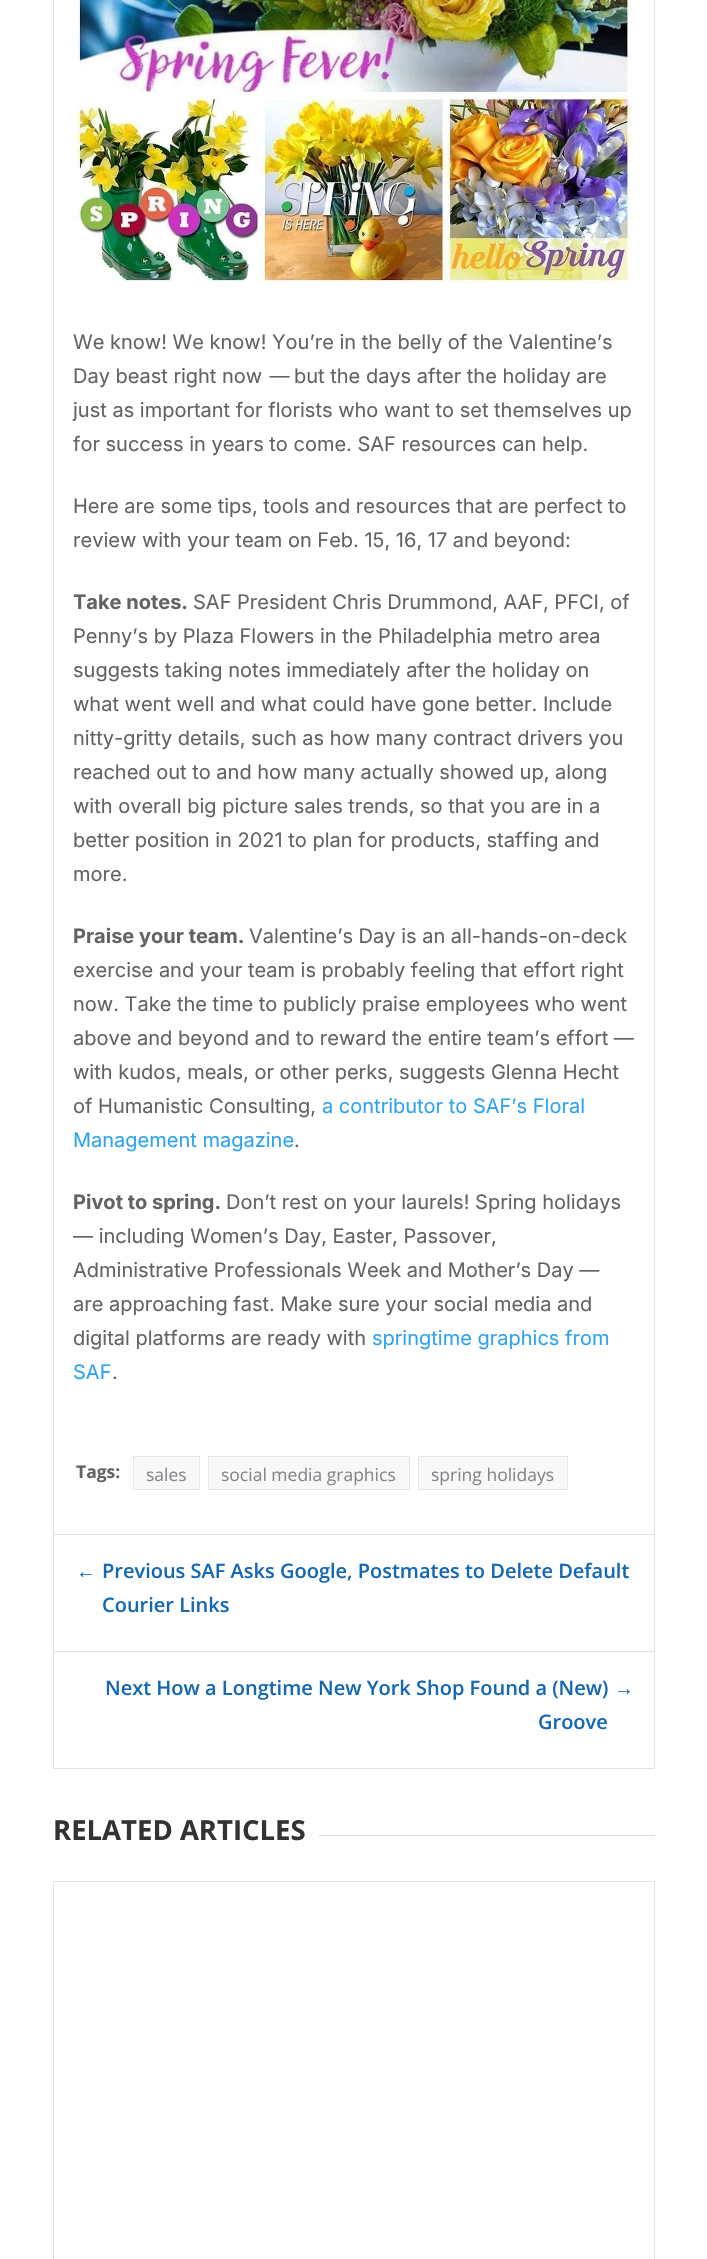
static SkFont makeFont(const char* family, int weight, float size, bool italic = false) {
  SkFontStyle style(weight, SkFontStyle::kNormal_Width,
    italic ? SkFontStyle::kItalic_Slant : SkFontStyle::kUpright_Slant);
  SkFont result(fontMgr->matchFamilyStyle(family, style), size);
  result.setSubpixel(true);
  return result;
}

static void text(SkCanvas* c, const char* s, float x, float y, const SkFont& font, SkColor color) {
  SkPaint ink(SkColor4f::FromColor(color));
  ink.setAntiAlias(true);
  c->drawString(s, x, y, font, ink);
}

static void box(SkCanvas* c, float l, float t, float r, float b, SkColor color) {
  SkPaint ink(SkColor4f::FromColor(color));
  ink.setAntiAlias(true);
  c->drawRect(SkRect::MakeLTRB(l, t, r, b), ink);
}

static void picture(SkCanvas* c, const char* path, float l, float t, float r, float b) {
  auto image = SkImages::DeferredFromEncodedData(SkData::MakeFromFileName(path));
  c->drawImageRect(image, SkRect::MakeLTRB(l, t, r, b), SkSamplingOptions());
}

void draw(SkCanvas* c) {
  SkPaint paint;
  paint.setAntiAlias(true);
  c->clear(0xffffffff);
  box(c, 654, 0, 655, 1769, 0xffe2e2e2);
  box(c, 53, 1768, 655, 1769, 0xffe2e2e2);
  box(c, 53, 0, 54, 1769, 0xffe2e2e2);
  picture(c, "img_01.png", 72, 0, 635, 282);
  SkFont face1 = makeFont("Inter", 400, 20);
  text(c, "We know! We know! You’re in the belly of the Valentine’s", 73, 349, face1, 0xff636363);
  text(c, "Day beast right now", 73, 383, face1, 0xff636363);
  SkFont face2 = makeFont("Inter", 400, 20, true);
  text(c, "—", 268, 383, face2, 0xff636363);
  text(c, "but the days after the holiday are", 294, 383, face1, 0xff636363);
  text(c, "just as important for florists who want to set themselves up", 73, 417, face1, 0xff636363);
  text(c, "for success in years to come. SAF resources can help.", 73, 451, face1, 0xff636363);
  text(c, "Here are some tips, tools and resources that are perfect to", 73, 513, face1, 0xff636363);
  text(c, "review with your team on Feb. 15, 16, 17 and beyond:", 73, 547, face1, 0xff636363);
  SkFont face3 = makeFont("Inter", 700, 20);
  text(c, "Take notes.", 73, 609, face3, 0xff636363);
  text(c, "SAF President Chris Drummond, AAF, PFCI, of", 193, 609, face1, 0xff636363);
  text(c, "Penny’s by Plaza Flowers in the Philadelphia metro area", 73, 643, face1, 0xff636363);
  text(c, "suggests taking notes immediately after the holiday on", 73, 677, face1, 0xff636363);
  text(c, "what went well and what could have gone better. Include", 73, 711, face1, 0xff636363);
  text(c, "nitty-gritty details, such as how many contract drivers you", 73, 745, face1, 0xff636363);
  text(c, "reached out to and how many actually showed up, along", 73, 779, face1, 0xff636363);
  text(c, "with overall big picture sales trends, so that you are in a", 73, 813, face1, 0xff636363);
  text(c, "better position in 2021 to plan for products, staffing and", 73, 847, face1, 0xff636363);
  text(c, "more.", 73, 881, face1, 0xff636363);
  text(c, "Praise your team.", 73, 943, face3, 0xff636363);
  text(c, "Valentine’s Day is an all-hands-on-deck", 249, 943, face1, 0xff636363);
  text(c, "exercise and your team is probably feeling that effort right", 73, 977, face1, 0xff636363);
  text(c, "now. Take the time to publicly praise employees who went", 73, 1011, face1, 0xff636363);
  text(c, "above and beyond and to reward the entire team’s effort —", 73, 1045, face1, 0xff636363);
  text(c, "with kudos, meals, or other perks, suggests Glenna Hecht", 73, 1079, face1, 0xff636363);
  text(c, "of Humanistic Consulting,", 73, 1113, face1, 0xff636363);
  text(c, "a contributor to SAF’s Floral", 322, 1113, face1, 0xff2ea3f2);
  text(c, "Management magazine", 73, 1147, face1, 0xff2ea3f2);
  text(c, ".", 294, 1147, face1, 0xff636363);
  text(c, "Pivot to spring.", 73, 1209, face3, 0xff636363);
  text(c, "Don’t rest on your laurels! Spring holidays", 226, 1209, face1, 0xff636363);
  text(c, "— including Women’s Day, Easter, Passover,", 73, 1243, face1, 0xff636363);
  text(c, "Administrative Professionals Week and Mother’s Day —", 73, 1277, face1, 0xff636363);
  text(c, "are approaching fast. Make sure your social media and", 73, 1311, face1, 0xff636363);
  text(c, "digital platforms are ready with", 73, 1345, face1, 0xff636363);
  text(c, "springtime graphics from", 372, 1345, face1, 0xff2ea3f2);
  text(c, "SAF", 73, 1379, face1, 0xff2ea3f2);
  text(c, ".", 112, 1379, face1, 0xff636363);
  SkFont face4 = makeFont("Open Sans", 700, 17.5f);
  text(c, "Tags:", 76, 1478, face4, 0xff636363);
  paint.setColor(0xfff8f8f8);
  c->drawRect(SkRect::MakeLTRB(133.5f, 1456.5f, 199.5f, 1489.5f), paint);
  paint.setStyle(SkPaint::kStroke_Style);
  paint.setStrokeWidth(1);
  paint.setColor(0xffe5e5e5);
  c->drawRect(SkRect::MakeLTRB(133.5f, 1456.5f, 199.5f, 1489.5f), paint);
  SkFont face5 = makeFont("Open Sans", 400, 17.5f);
  text(c, "sales", 146, 1481, face5, 0xff83868a);
  paint.setStyle(SkPaint::kFill_Style);
  paint.setColor(0xfff8f8f8);
  c->drawRect(SkRect::MakeLTRB(208.5f, 1456.5f, 409.5f, 1489.5f), paint);
  paint.setStyle(SkPaint::kStroke_Style);
  paint.setColor(0xffe5e5e5);
  c->drawRect(SkRect::MakeLTRB(208.5f, 1456.5f, 409.5f, 1489.5f), paint);
  text(c, "social media graphics", 221, 1481, face5, 0xff83868a);
  paint.setStyle(SkPaint::kFill_Style);
  paint.setColor(0xfff8f8f8);
  c->drawRect(SkRect::MakeLTRB(418.5f, 1456.5f, 567.5f, 1489.5f), paint);
  paint.setStyle(SkPaint::kStroke_Style);
  paint.setColor(0xffe5e5e5);
  c->drawRect(SkRect::MakeLTRB(418.5f, 1456.5f, 567.5f, 1489.5f), paint);
  text(c, "spring holidays", 431, 1481, face5, 0xff83868a);
  box(c, 54, 1534, 654, 1535, 0xffe2e2e2);
  SkFont face6 = makeFont("Liberation Sans", 700, 20);
  text(c, "←", 76, 1578, face6, 0xff1568b3);
  SkFont face7 = makeFont("Open Sans", 600, 20);
  text(c, "Previous SAF Asks Google, Postmates to Delete Default", 102, 1578, face7, 0xff1568b3);
  text(c, "Courier Links", 102, 1612, face7, 0xff1568b3);
  box(c, 54, 1651, 654, 1652, 0xffe2e2e2);
  text(c, "Next How a Longtime New York Shop Found a (New)", 105, 1695, face7, 0xff1568b3);
  text(c, "Groove", 538, 1729, face7, 0xff1568b3);
  text(c, "→", 614, 1695, face6, 0xff1568b3);
  SkFont face8 = makeFont("Open Sans", 700, 27.5f);
  text(c, "RELATED ARTICLES", 53, 1840, face8, 0xff333333);
  box(c, 319, 1835, 655, 1836, 0xffe0e0e0);
  paint.setColor(0xffe2e2e2);
  c->drawRect(SkRect::MakeLTRB(53.5f, 1881.5f, 654.5f, 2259.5f), paint);
}
